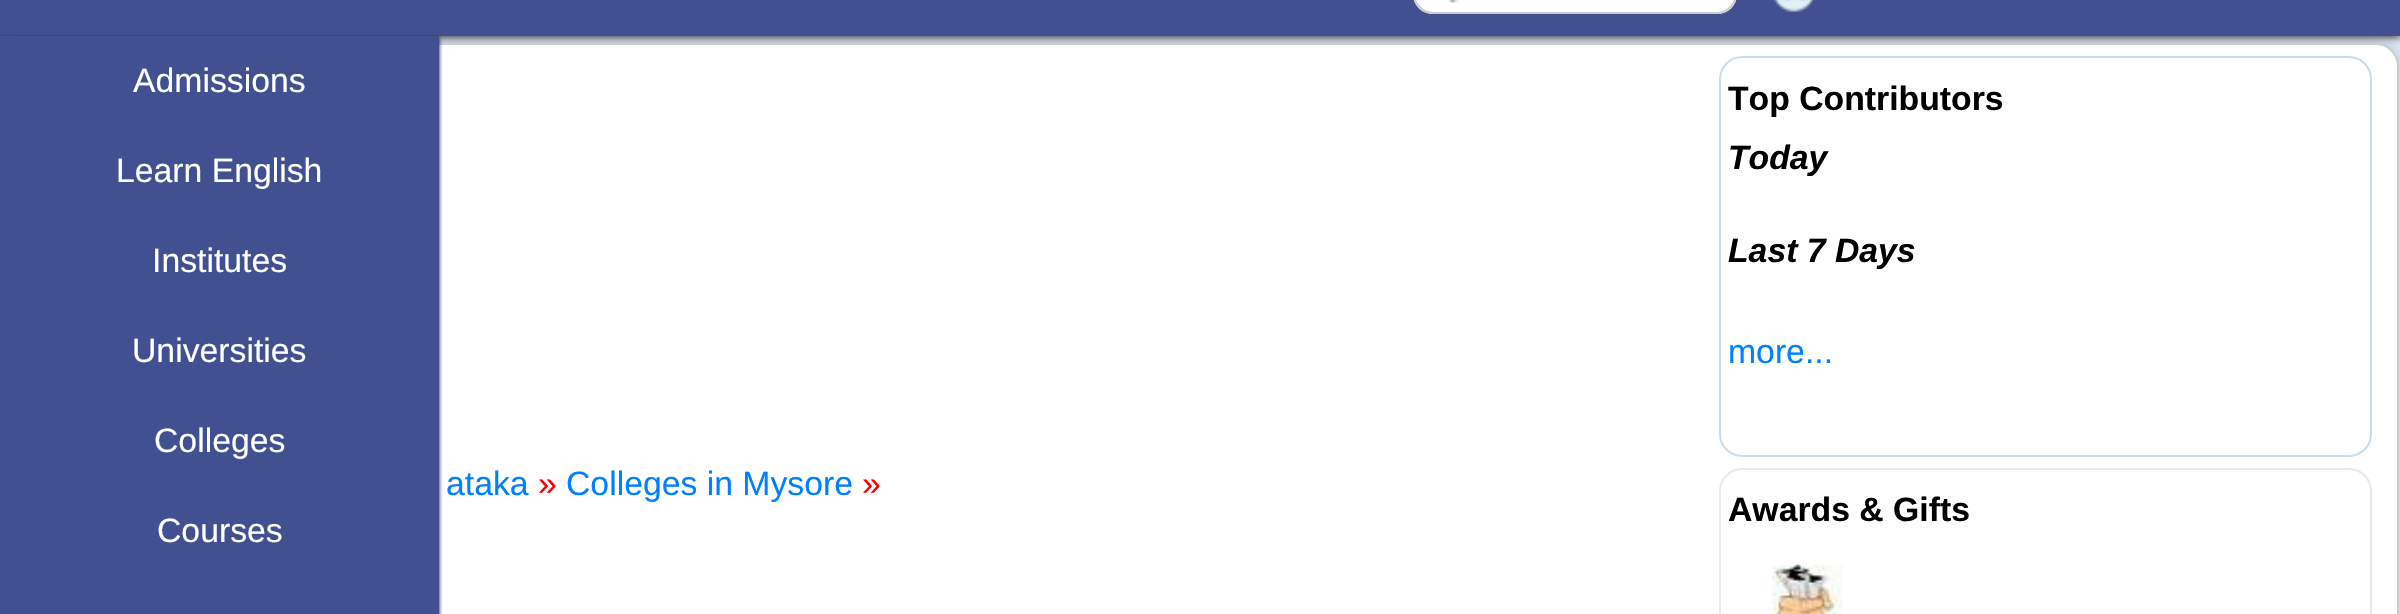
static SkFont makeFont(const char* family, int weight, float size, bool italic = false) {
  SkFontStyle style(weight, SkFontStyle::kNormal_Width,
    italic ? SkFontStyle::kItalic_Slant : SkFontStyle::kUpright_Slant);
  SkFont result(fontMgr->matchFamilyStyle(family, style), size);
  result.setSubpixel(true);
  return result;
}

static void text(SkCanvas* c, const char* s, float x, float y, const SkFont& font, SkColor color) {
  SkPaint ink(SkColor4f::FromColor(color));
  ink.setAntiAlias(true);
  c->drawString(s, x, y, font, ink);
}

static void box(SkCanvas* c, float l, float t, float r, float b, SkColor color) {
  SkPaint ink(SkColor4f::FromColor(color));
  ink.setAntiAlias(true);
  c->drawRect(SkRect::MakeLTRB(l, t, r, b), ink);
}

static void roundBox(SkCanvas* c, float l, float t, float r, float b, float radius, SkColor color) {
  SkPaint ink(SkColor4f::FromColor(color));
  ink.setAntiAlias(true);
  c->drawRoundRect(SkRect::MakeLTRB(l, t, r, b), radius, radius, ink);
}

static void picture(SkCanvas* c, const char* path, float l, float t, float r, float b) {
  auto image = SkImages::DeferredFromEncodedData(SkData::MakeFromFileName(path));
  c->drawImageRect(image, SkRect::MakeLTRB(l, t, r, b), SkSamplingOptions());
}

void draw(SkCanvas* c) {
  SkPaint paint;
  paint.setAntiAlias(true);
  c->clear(0xffdce6f4);
  paint.setColor(0xff000000);
  paint.setMaskFilter(SkMaskFilter::MakeBlur(kNormal_SkBlurStyle, 4.5f));
  c->drawRect(SkRect::MakeLTRB(0, -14, 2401, 36), paint);
  paint.setMaskFilter(nullptr);
  box(c, 0, 0, 2400, 36, 0xff405090);
  roundBox(c, 1413, -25, 1737, 14, 25, 0xffffffff);
  picture(c, "img_01.png", 1448, 0, 1459, 3);
  paint.setStyle(SkPaint::kStroke_Style);
  paint.setStrokeWidth(2);
  paint.setColor(0xffcccccc);
  c->drawRoundRect(SkRect::MakeLTRB(1414, -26, 1736, 13), 24, 24, paint);
  picture(c, "img_02.png", 1773, 0, 1815, 12);
  paint.setStyle(SkPaint::kFill_Style);
  paint.setColor(0x2e323232);
  paint.setMaskFilter(SkMaskFilter::MakeBlur(kNormal_SkBlurStyle, 4.5f));
  c->drawRoundRect(SkRect::MakeLTRB(0, 43, 2399, 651), 23, 23, paint);
  paint.setMaskFilter(nullptr);
  paint.setColor(0xffffffff);
  c->drawRoundRect(SkRect::MakeLTRB(1, 44, 2398, 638), 22, 22, paint);
  paint.setStyle(SkPaint::kStroke_Style);
  paint.setColor(0xffcccccc);
  c->drawRoundRect(SkRect::MakeLTRB(1, 44, 2398, 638), 22, 22, paint);
  paint.setStyle(SkPaint::kFill_Style);
  paint.setColor(0xff000000);
  paint.setMaskFilter(SkMaskFilter::MakeBlur(kNormal_SkBlurStyle, 2));
  c->drawRect(SkRect::MakeLTRB(0, 38, 439, 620), paint);
  paint.setMaskFilter(nullptr);
  box(c, 0, 36, 439, 614, 0xff405090);
  SkFont face1 = makeFont("Liberation Sans", 400, 33.75f);
  text(c, "Admissions", 133, 92, face1, 0xffffffff);
  text(c, "Learn English", 116, 182, face1, 0xffffffff);
  text(c, "Institutes", 152, 272, face1, 0xffffffff);
  text(c, "Universities", 132, 362, face1, 0xffffffff);
  text(c, "Colleges", 154, 452, face1, 0xffffffff);
  text(c, "Courses", 157, 542, face1, 0xffffffff);
  text(c, "ataka", 446, 495, face1, 0xff0080ff);
  text(c, "»", 538, 495, face1, 0xffff0000);
  text(c, "Colleges in Mysore", 566, 495, face1, 0xff0080ff);
  text(c, "»", 862, 495, face1, 0xffff0000);
  paint.setStyle(SkPaint::kStroke_Style);
  paint.setColor(0xffcaddea);
  c->drawRoundRect(SkRect::MakeLTRB(1720, 57, 2371, 456), 22, 22, paint);
  SkFont face2 = makeFont("Liberation Sans", 700, 33.75f);
  text(c, "Top Contributors", 1728, 110, face2, 0xff000000);
  SkFont face3 = makeFont("Liberation Sans", 700, 33.75f, true);
  text(c, "Today", 1728, 169, face3, 0xff000000);
  text(c, "Last 7 Days", 1728, 262, face3, 0xff000000);
  text(c, "more...", 1728, 363, face1, 0xff0080ff);
  paint.setColor(0xffe8e8e8);
  c->drawRoundRect(SkRect::MakeLTRB(1720, 469, 2371, 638), 22, 22, paint);
  text(c, "Awards & Gifts", 1728, 521, face2, 0xff000000);
  picture(c, "img_03.png", 1771, 564, 1843, 614);
}
